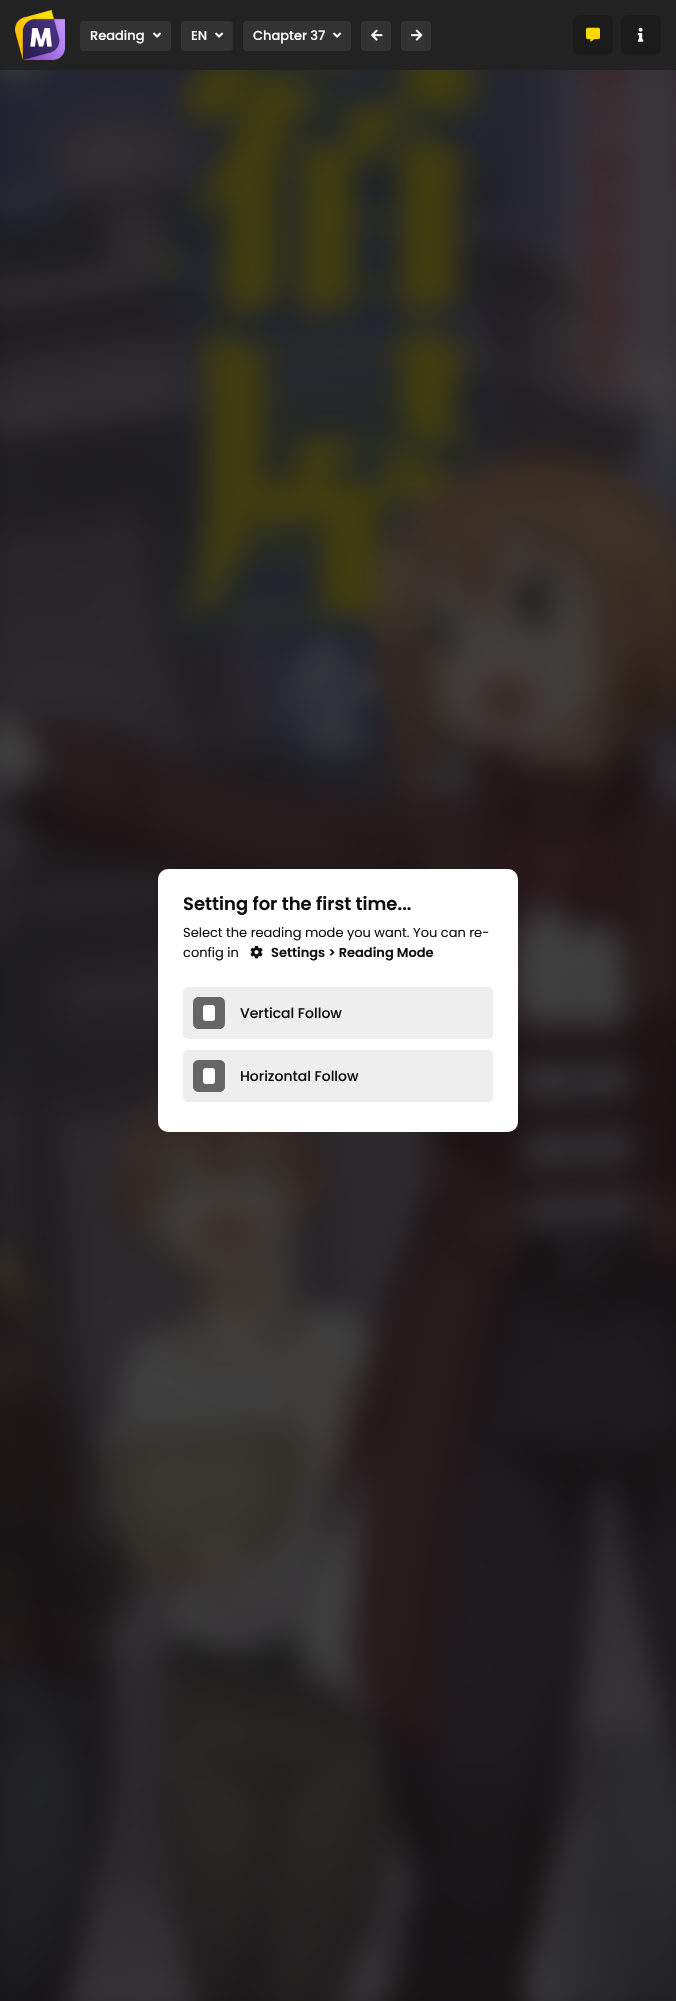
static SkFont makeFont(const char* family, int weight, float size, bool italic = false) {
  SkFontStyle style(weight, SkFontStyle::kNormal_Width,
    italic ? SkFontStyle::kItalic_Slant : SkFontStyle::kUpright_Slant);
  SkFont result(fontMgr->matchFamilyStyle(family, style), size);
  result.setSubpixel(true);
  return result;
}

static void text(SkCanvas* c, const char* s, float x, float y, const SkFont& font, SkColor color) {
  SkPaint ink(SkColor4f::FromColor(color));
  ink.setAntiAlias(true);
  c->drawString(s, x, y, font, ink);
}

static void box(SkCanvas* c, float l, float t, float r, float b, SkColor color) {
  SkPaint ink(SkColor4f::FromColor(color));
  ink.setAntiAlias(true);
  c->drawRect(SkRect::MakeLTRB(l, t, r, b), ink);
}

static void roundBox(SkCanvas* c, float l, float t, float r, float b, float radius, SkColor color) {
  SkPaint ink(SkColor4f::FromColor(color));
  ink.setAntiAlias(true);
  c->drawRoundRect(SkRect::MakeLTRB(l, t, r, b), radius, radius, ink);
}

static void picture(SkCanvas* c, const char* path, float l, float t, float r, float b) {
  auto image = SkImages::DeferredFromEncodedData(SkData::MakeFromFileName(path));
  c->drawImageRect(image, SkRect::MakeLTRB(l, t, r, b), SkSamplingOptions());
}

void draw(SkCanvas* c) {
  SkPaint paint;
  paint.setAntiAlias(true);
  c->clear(0xff111111);
  box(c, 0, 0, 676, 70, 0xff222222);
  picture(c, "img_01.png", 15, 10, 65, 60);
  roundBox(c, 80, 21, 171, 51, 4, 0xff333333);
  SkFont face1 = makeFont("Poppins", 500, 13);
  text(c, "Reading", 90, 40, face1, 0xffffffff);
  picture(c, "img_02.png", 153, 32, 162, 38);
  roundBox(c, 181, 21, 233, 51, 4, 0xff333333);
  text(c, "EN", 191, 40, face1, 0xffffffff);
  picture(c, "img_02.png", 215, 32, 224, 38);
  roundBox(c, 243, 21, 351, 51, 4, 0xff333333);
  text(c, "Chapter 37", 253, 40, face1, 0xffffffff);
  picture(c, "img_02.png", 333, 32, 342, 38);
  roundBox(c, 361, 21, 391, 51, 4, 0xff333333);
  picture(c, "img_03.png", 371, 29, 383, 41);
  roundBox(c, 401, 21, 431, 51, 4, 0xff333333);
  picture(c, "img_04.png", 411, 29, 423, 41);
  roundBox(c, 573, 15, 613, 55, 6, 0xff1b1b1b);
  picture(c, "img_05.png", 586, 27, 600, 42);
  roundBox(c, 621, 15, 661, 55, 6, 0xff1b1b1b);
  picture(c, "img_06.png", 638, 27, 644, 42);
  picture(c, "img_07.png", 0, 70, 676, 2001);
  roundBox(c, 158, 869, 518, 1132, 10, 0xffffffff);
  SkFont face2 = makeFont("Poppins", 600, 18);
  text(c, "Setting for the first time...", 183, 910, face2, 0xff111111);
  SkFont face3 = makeFont("Poppins", 400, 13);
  text(c, "Select the reading mode you want. You can re-", 183, 937, face3, 0xff111111);
  text(c, "config in", 183, 957, face3, 0xff111111);
  picture(c, "img_08.png", 250, 945, 263, 959);
  SkFont face4 = makeFont("Poppins", 600, 13);
  text(c, "Settings > Reading Mode", 271, 957, face4, 0xff111111);
  roundBox(c, 183, 987, 493, 1039, 5, 0xffeeeeee);
  roundBox(c, 193, 997, 225, 1029, 6, 0xff666666);
  c->save();
  c->clipPath(SkPathBuilder().moveTo(199, 997).lineTo(219, 997).cubicTo(222.5f, 997, 225, 999.5f, 225, 1003).lineTo(225, 1023).cubicTo(225, 1026.5f, 222.5f, 1029, 219, 1029).lineTo(199, 1029).cubicTo(195.5f, 1029, 193, 1026.5f, 193, 1023).lineTo(193, 1003).cubicTo(193, 999.5f, 195.5f, 997, 199, 997).close().detach(), true);
  box(c, 193, 997, 225, 1001, 0xff666666);
  c->restore();
  roundBox(c, 203, 1005, 215, 1021, 3, 0xffffffff);
  c->save();
  c->clipPath(SkPathBuilder().moveTo(199, 997).lineTo(219, 997).cubicTo(222.5f, 997, 225, 999.5f, 225, 1003).lineTo(225, 1023).cubicTo(225, 1026.5f, 222.5f, 1029, 219, 1029).lineTo(199, 1029).cubicTo(195.5f, 1029, 193, 1026.5f, 193, 1023).lineTo(193, 1003).cubicTo(193, 999.5f, 195.5f, 997, 199, 997).close().detach(), true);
  box(c, 193, 1025, 225, 1029, 0xff666666);
  c->restore();
  SkFont face5 = makeFont("Poppins", 500, 14);
  text(c, "Vertical Follow", 240, 1018, face5, 0xff111111);
  roundBox(c, 183, 1050, 493, 1102, 5, 0xffeeeeee);
  roundBox(c, 193, 1060, 225, 1092, 6, 0xff666666);
  paint.setColor(0xff666666);
  c->drawPath(SkPathBuilder().moveTo(199, 1060).lineTo(199, 1092).cubicTo(195.5f, 1092, 193, 1089.5f, 193, 1086).lineTo(193, 1066).cubicTo(193, 1062.5f, 195.5f, 1060, 199, 1060).close().detach(), paint);
  roundBox(c, 203, 1068, 215, 1084, 3, 0xffffffff);
  c->drawPath(SkPathBuilder().moveTo(219, 1060).cubicTo(222.5f, 1060, 225, 1062.5f, 225, 1066).lineTo(225, 1086).cubicTo(225, 1089.5f, 222.5f, 1092, 219, 1092).close().detach(), paint);
  text(c, "Horizontal Follow", 240, 1081, face5, 0xff111111);
}
